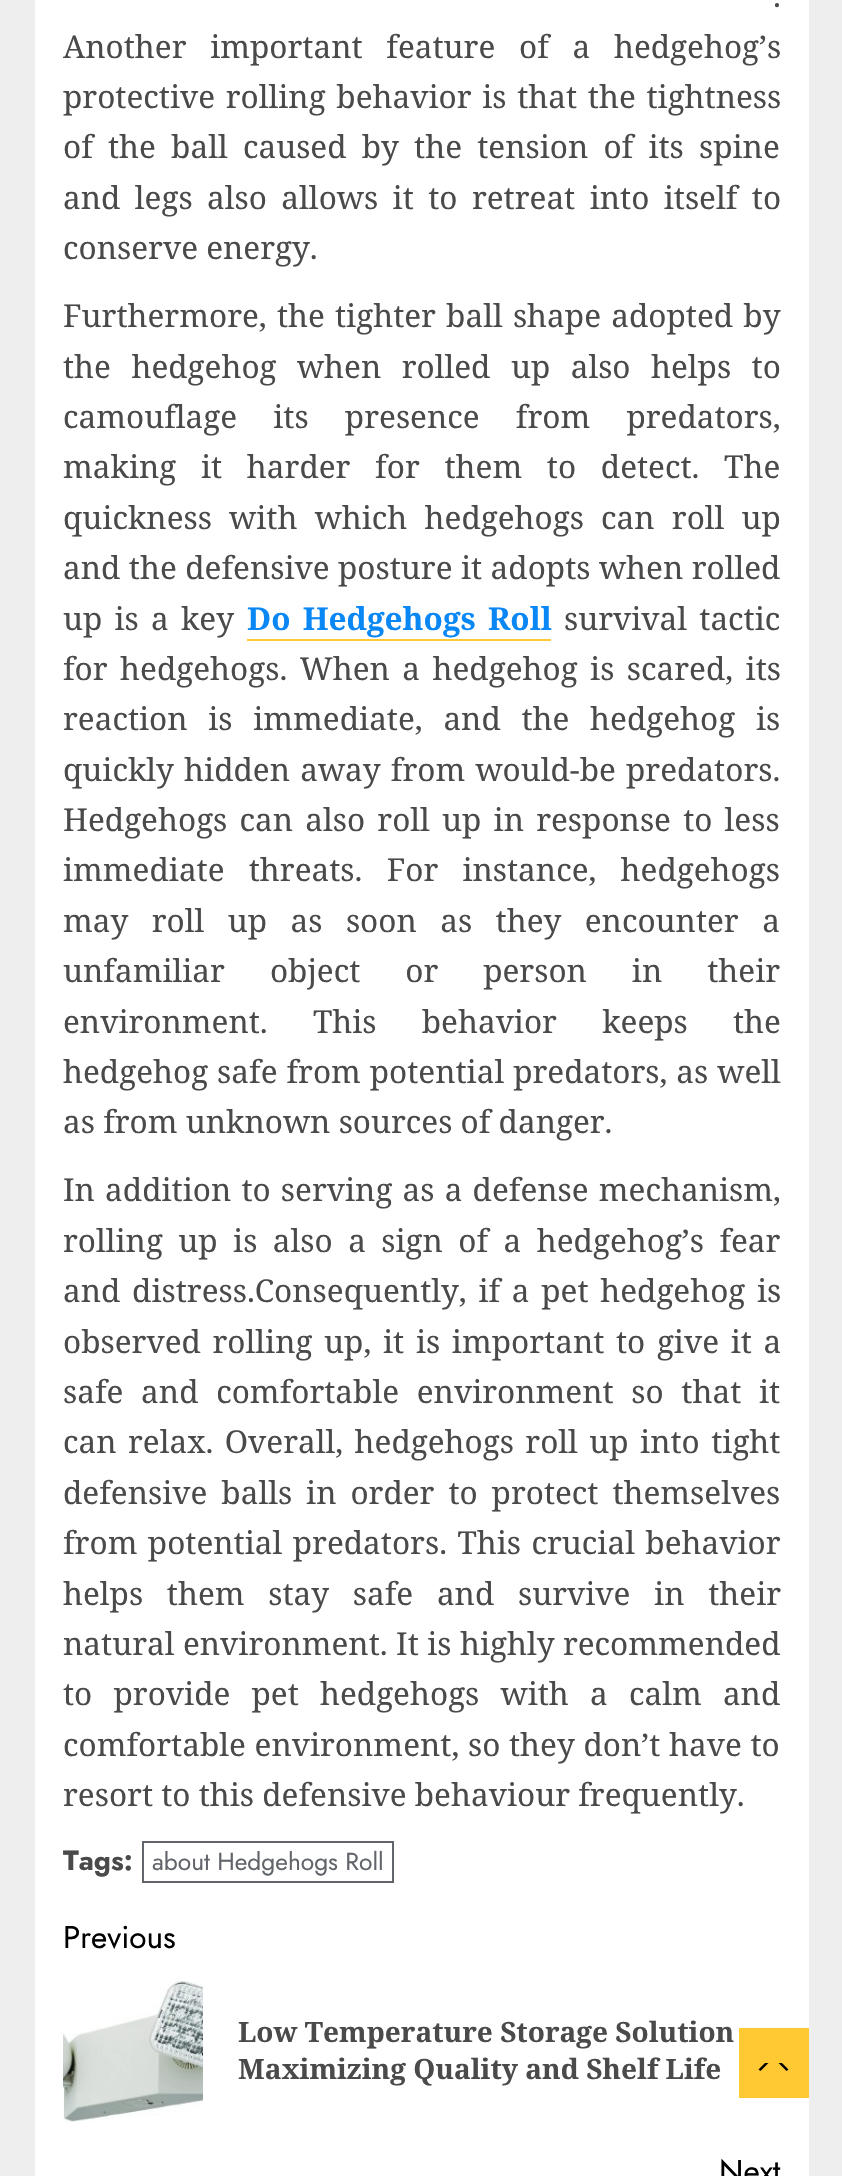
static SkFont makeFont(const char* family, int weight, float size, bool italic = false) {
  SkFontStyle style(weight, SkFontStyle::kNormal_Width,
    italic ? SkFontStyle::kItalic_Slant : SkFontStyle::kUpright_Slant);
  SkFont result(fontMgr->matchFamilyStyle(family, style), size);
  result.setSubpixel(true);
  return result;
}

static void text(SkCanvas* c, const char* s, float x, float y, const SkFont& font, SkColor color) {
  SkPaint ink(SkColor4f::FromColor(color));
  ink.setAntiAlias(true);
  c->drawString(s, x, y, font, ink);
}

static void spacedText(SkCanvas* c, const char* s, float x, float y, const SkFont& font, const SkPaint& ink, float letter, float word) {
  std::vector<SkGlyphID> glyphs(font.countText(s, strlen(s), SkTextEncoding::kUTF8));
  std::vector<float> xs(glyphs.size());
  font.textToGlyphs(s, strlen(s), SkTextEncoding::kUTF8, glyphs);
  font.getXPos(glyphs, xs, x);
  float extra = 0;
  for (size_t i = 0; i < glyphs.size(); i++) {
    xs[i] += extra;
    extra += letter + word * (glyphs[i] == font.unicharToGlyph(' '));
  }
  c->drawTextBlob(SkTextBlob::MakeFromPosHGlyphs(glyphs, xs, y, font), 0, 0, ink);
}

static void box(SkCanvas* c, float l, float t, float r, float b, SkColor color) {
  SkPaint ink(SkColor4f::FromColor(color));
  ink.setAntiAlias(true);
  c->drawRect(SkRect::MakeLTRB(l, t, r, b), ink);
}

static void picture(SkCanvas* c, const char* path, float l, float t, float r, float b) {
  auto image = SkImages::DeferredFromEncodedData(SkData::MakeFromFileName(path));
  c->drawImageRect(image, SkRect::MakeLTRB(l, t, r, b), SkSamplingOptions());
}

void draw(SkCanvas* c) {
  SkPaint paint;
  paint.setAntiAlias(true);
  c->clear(0xffeeeeee);
  box(c, 35, 0, 809, 2176, 0xffffffff);
  SkFont face1 = makeFont("Noto Serif", 400, 31.5f);
  paint.setColor(0xff4a4a4a);
  spacedText(c, ".", 773, 7, face1, paint, 0, 7);
  spacedText(c, "Another important feature of a hedgehog’s", 63, 58, face1, paint, 0, 15.5f);
  spacedText(c, "protective rolling behavior is that the tightness", 63, 108, face1, paint, 0, 2.5f);
  spacedText(c, "of the ball caused by the tension of its spine", 63, 158, face1, paint, 0, 7);
  spacedText(c, "and legs also allows it to retreat into itself to", 63, 209, face1, paint, 0, 6.25f);
  text(c, "conserve energy.", 63, 259, face1, 0xff4a4a4a);
  spacedText(c, "Furthermore, the tighter ball shape adopted by", 63, 327, face1, paint, 0, 2);
  spacedText(c, "the hedgehog when rolled up also helps to", 63, 378, face1, paint, 0, 12.25f);
  spacedText(c, "camouflage its presence from predators,", 63, 428, face1, paint, 0, 28);
  spacedText(c, "making it harder for them to detect. The", 63, 478, face1, paint, 0, 16.5f);
  spacedText(c, "quickness with which hedgehogs can roll up", 63, 529, face1, paint, 0, 9);
  spacedText(c, "and the defensive posture it adopts when rolled", 63, 579, face1, paint, 0, 0.25f);
  spacedText(c, "up is a key", 63, 630, face1, paint, 0, 4);
  SkFont face2 = makeFont("Noto Serif", 700, 31.5f);
  paint.setColor(0xff0987f5);
  spacedText(c, "Do Hedgehogs Roll", 247, 630, face2, paint, 0, 4);
  box(c, 247, 639, 551, 641, 0xffffc934);
  paint.setColor(0xff4a4a4a);
  spacedText(c, "survival tactic", 564, 630, face1, paint, 0, 4);
  spacedText(c, "for hedgehogs. When a hedgehog is scared, its", 63, 680, face1, paint, 0, 4.25f);
  spacedText(c, "reaction is immediate, and the hedgehog is", 63, 730, face1, paint, 0, 12.5f);
  spacedText(c, "quickly hidden away from would-be predators.", 63, 781, face1, paint, 0, 2);
  spacedText(c, "Hedgehogs can also roll up in response to less", 63, 831, face1, paint, 0, 4);
  spacedText(c, "immediate threats. For instance, hedgehogs", 63, 881, face1, paint, 0, 16);
  spacedText(c, "may roll up as soon as they encounter a", 63, 932, face1, paint, 0, 15.25f);
  spacedText(c, "unfamiliar object or person in their", 63, 982, face1, paint, 0, 36.75f);
  spacedText(c, "environment. This behavior keeps the", 63, 1033, face1, paint, 0, 37);
  spacedText(c, "hedgehog safe from potential predators, as well", 63, 1083, face1, paint, 0, 0.75f);
  text(c, "as from unknown sources of danger.", 63, 1133, face1, 0xff4a4a4a);
  spacedText(c, "In addition to serving as a defense mechanism,", 63, 1201, face1, paint, 0, 2);
  spacedText(c, "rolling up is also a sign of a hedgehog’s fear", 63, 1252, face1, paint, 0, 7.25f);
  spacedText(c, "and distress.Consequently, if a pet hedgehog is", 63, 1302, face1, paint, 0, 3.5f);
  spacedText(c, "observed rolling up, it is important to give it a", 63, 1353, face1, paint, 0, 3.5f);
  spacedText(c, "safe and comfortable environment so that it", 63, 1403, face1, paint, 0, 9.5f);
  spacedText(c, "can relax. Overall, hedgehogs roll up into tight", 63, 1453, face1, paint, 0, 3.25f);
  spacedText(c, "defensive balls in order to protect themselves", 63, 1504, face1, paint, 0, 5.75f);
  spacedText(c, "from potential predators. This crucial behavior", 63, 1554, face1, paint, 0, 2.25f);
  spacedText(c, "helps them stay safe and survive in their", 63, 1605, face1, paint, 0, 15.5f);
  spacedText(c, "natural environment. It is highly recommended", 63, 1655, face1, paint, 0, 0.25f);
  spacedText(c, "to provide pet hedgehogs with a calm and", 63, 1705, face1, paint, 0, 13);
  spacedText(c, "comfortable environment, so they don’t have to", 63, 1756, face1, paint, 0, 0.5f);
  text(c, "resort to this defensive behaviour frequently.", 63, 1806, face1, 0xff4a4a4a);
  SkFont face3 = makeFont("Jost", 700, 28);
  text(c, "Tags:", 63, 1870, face3, 0xff4a4a4a);
  paint.setStyle(SkPaint::kStroke_Style);
  paint.setStrokeWidth(2);
  paint.setColor(0xff61656b);
  c->drawRect(SkRect::MakeLTRB(143, 1842, 393, 1882), paint);
  SkFont face4 = makeFont("Jost", 400, 24.5f);
  text(c, "about Hedgehogs Roll", 152, 1870, face4, 0xff61656b);
  SkFont face5 = makeFont("Jost", 400, 31.5f);
  text(c, "Previous", 63, 1948, face5, 0xff000000);
  picture(c, "img_01.png", 63, 1981, 203, 2122);
  SkFont face6 = makeFont("Noto Serif", 700, 28);
  text(c, "Low Temperature Storage Solution", 238, 2042, face6, 0xff4a4a4a);
  text(c, "Maximizing Quality and Shelf Life", 238, 2079, face6, 0xff4a4a4a);
  text(c, "Next", 719, 2182, face5, 0xff000000);
  box(c, 739, 2028, 809, 2098, 0xffffc934);
  paint.setStyle(SkPaint::kFill_Style);
  paint.setColor(0xff000000);
  c->drawPath(SkPathBuilder().moveTo(765, 2072).lineTo(782, 2072).cubicTo(784.5f, 2072, 787, 2071, 788.5f, 2069.5f).lineTo(782, 2063).lineTo(765, 2063).lineTo(758.5f, 2069.5f).cubicTo(760, 2071, 762.5f, 2072, 765, 2072).close().detach(), paint);
  paint.setColor(0xffffc934);
  c->drawPath(SkPathBuilder().moveTo(791, 2075.5f).lineTo(756, 2075.5f).lineTo(773.5f, 2058).close().detach(), paint);
}
